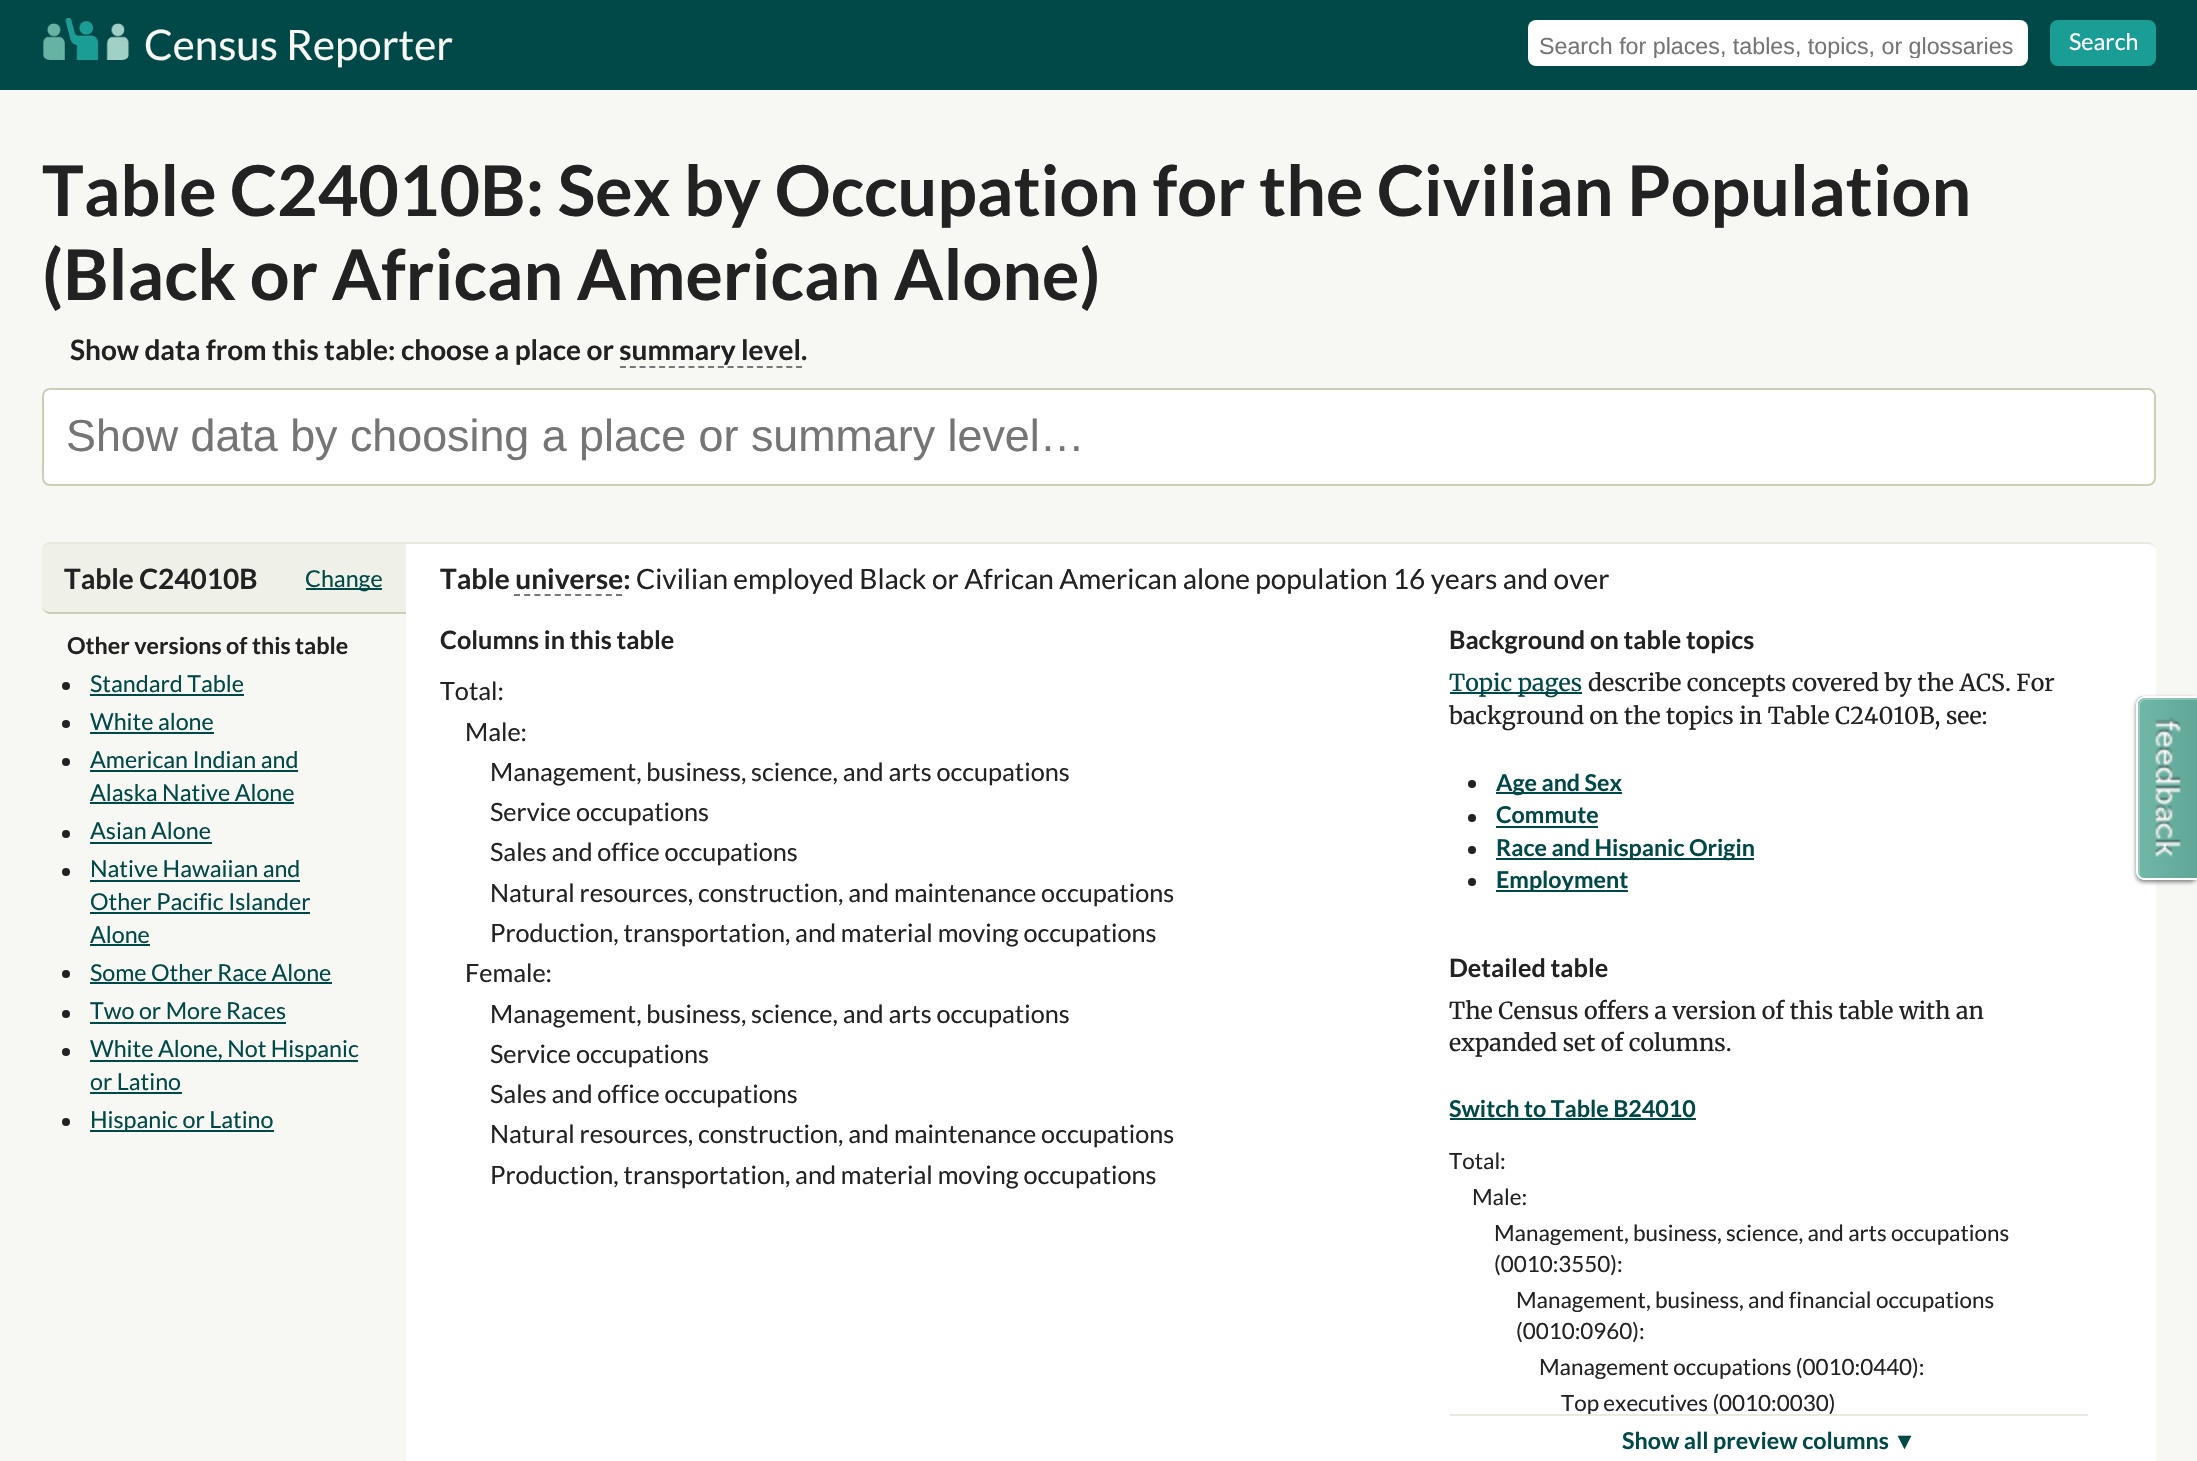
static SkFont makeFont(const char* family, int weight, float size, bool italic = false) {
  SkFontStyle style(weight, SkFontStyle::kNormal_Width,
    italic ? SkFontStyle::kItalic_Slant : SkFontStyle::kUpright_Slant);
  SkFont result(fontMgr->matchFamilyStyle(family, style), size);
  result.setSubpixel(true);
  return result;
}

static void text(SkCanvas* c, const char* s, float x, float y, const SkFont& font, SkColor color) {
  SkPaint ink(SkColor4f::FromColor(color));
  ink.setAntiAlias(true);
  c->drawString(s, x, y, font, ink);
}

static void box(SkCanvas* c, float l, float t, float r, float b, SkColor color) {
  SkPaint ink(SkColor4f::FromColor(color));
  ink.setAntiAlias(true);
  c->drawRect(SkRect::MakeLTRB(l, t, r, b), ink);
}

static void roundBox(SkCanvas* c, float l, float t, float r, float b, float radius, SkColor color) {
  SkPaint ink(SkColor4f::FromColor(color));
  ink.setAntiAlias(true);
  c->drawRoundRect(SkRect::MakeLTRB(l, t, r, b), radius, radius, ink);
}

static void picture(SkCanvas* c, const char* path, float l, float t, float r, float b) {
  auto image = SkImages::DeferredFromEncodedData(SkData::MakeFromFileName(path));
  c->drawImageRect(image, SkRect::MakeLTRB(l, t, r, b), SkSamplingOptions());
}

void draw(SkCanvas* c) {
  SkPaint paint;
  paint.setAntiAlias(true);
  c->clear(0xfff7f8f3);
  box(c, 0, 0, 2197, 90, 0xff014948);
  picture(c, "img_01.png", 43, 18, 130, 60);
  SkFont face1 = makeFont("Lato", 400, 42);
  text(c, "Census Reporter", 144, 60, face1, 0xfff7f8f3);
  roundBox(c, 1528, 20, 2028, 66, 8, 0xffffffff);
  c->save();
  c->clipRect(SkRect::MakeLTRB(1540, 32, 2016, 58));
  SkFont face2 = makeFont("Liberation Sans", 400, 23.25f);
  text(c, "Search for places, tables, topics, or glossaries", 1539, 54, face2, 0xff757575);
  c->restore();
  roundBox(c, 2050, 20, 2156, 66, 8, 0xff1a9d95);
  SkFont face3 = makeFont("Lato", 400, 23.25f);
  text(c, "Search", 2069, 50, face3, 0xffffffff);
  SkFont face4 = makeFont("Lato", 700, 70);
  text(c, "Table C24010B: Sex by Occupation for the Civilian Population", 42, 216, face4, 0xff222222);
  text(c, "(Black or African American Alone)", 42, 300, face4, 0xff222222);
  SkFont face5 = makeFont("Lato", 700, 28);
  text(c, "Show data from this table: choose a place or summary level.", 70, 360, face5, 0xff222222);
  paint.setStyle(SkPaint::kStroke_Style);
  paint.setStrokeWidth(2);
  paint.setColor(0xff777777);
  paint.setPathEffect(SkDashPathEffect::Make({{6, 3.78f}}, 0));
  c->drawPath(SkPathBuilder().moveTo(620, 367).lineTo(802, 367).detach(), paint);
  paint.setPathEffect(nullptr);
  paint.setStyle(SkPaint::kFill_Style);
  paint.setColor(0xffffffff);
  c->drawRoundRect(SkRect::MakeLTRB(43, 389, 2155, 485), 7, 7, paint);
  paint.setStyle(SkPaint::kStroke_Style);
  paint.setColor(0xffcad0b5);
  c->drawRoundRect(SkRect::MakeLTRB(43, 389, 2155, 485), 7, 7, paint);
  SkFont face6 = makeFont("Liberation Sans", 400, 44.8f);
  text(c, "Show data by choosing a place or summary level…", 66, 451, face6, 0xff757575);
  paint.setStyle(SkPaint::kFill_Style);
  paint.setColor(0xffeff1e9);
  c->drawPath(SkPathBuilder().moveTo(50, 542).lineTo(406, 542).lineTo(406, 614).lineTo(50, 614).cubicTo(45.5f, 614, 42, 610.5f, 42, 606).lineTo(42, 550).cubicTo(42, 545.5f, 45.5f, 542, 50, 542).close().detach(), paint);
  paint.setColor(0xffe8eadf);
  c->drawPath(SkPathBuilder().moveTo(50, 544).lineTo(406, 544).lineTo(406, 542).lineTo(50, 542).cubicTo(46, 542, 42, 546, 42, 550).cubicTo(42, 547, 46, 544, 50, 544).close().detach(), paint);
  paint.setColor(0xffcad0b5);
  c->drawPath(SkPathBuilder().moveTo(406, 614).lineTo(406, 612).lineTo(50, 612).cubicTo(46, 612, 42, 609, 42, 606).cubicTo(42, 610, 46, 614, 50, 614).close().detach(), paint);
  text(c, "Table C24010B", 64, 589, face5, 0xff222222);
  box(c, 306, 588, 382, 590, 0xff014948);
  text(c, "Change", 305, 587, face3, 0xff014948);
  paint.setColor(0xffffffff);
  c->drawPath(SkPathBuilder().moveTo(406, 542).lineTo(2148, 542).cubicTo(2152.5f, 542, 2156, 545.5f, 2156, 550).lineTo(2156, 1461).cubicTo(2156, 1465.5f, 2152.5f, 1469, 2148, 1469).lineTo(414, 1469).cubicTo(409.5f, 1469, 406, 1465.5f, 406, 1461).close().detach(), paint);
  paint.setColor(0xffe8eadf);
  c->drawPath(SkPathBuilder().moveTo(406, 542).lineTo(406, 544).lineTo(2148, 544).cubicTo(2152, 544, 2156, 547, 2156, 550).cubicTo(2156, 546, 2152, 542, 2148, 542).close().detach(), paint);
  text(c, "Table universe:", 440, 589, face5, 0xff222222);
  SkFont face7 = makeFont("Lato", 400, 28);
  text(c, "Civilian employed Black or African American alone population 16 years and over", 636, 589, face7, 0xff222222);
  paint.setStyle(SkPaint::kStroke_Style);
  paint.setColor(0xff777777);
  paint.setPathEffect(SkDashPathEffect::Make({{6, 4.2f}}, 0));
  c->drawPath(SkPathBuilder().moveTo(514, 595).lineTo(622, 595).detach(), paint);
  paint.setPathEffect(nullptr);
  SkFont face8 = makeFont("Lato", 700, 23.25f);
  text(c, "Other versions of this table", 67, 654, face8, 0xff222222);
  paint.setStyle(SkPaint::kFill_Style);
  paint.setColor(0xff222222);
  c->drawCircle(66, 686, 4, paint);
  text(c, "Standard Table", 90, 692, face3, 0xff014948);
  box(c, 90, 694, 244, 696, 0xff014948);
  c->drawCircle(66, 724, 4, paint);
  text(c, "White alone", 90, 730, face3, 0xff014948);
  box(c, 90, 732, 214, 734, 0xff014948);
  c->drawCircle(66, 762, 4, paint);
  text(c, "American Indian and", 90, 768, face3, 0xff014948);
  box(c, 90, 770, 298, 772, 0xff014948);
  text(c, "Alaska Native Alone", 90, 801, face3, 0xff014948);
  box(c, 90, 802, 294, 804, 0xff014948);
  c->drawCircle(66, 834, 4, paint);
  text(c, "Asian Alone", 90, 839, face3, 0xff014948);
  box(c, 90, 842, 212, 844, 0xff014948);
  c->drawCircle(66, 872, 4, paint);
  text(c, "Native Hawaiian and", 90, 877, face3, 0xff014948);
  box(c, 90, 880, 300, 882, 0xff014948);
  text(c, "Other Pacific Islander", 90, 910, face3, 0xff014948);
  box(c, 90, 912, 310, 914, 0xff014948);
  text(c, "Alone", 90, 943, face3, 0xff014948);
  box(c, 90, 944, 150, 946, 0xff014948);
  c->drawCircle(66, 974, 4, paint);
  text(c, "Some Other Race Alone", 90, 981, face3, 0xff014948);
  box(c, 90, 982, 332, 984, 0xff014948);
  c->drawCircle(66, 1014, 4, paint);
  text(c, "Two or More Races", 90, 1019, face3, 0xff014948);
  box(c, 90, 1022, 286, 1024, 0xff014948);
  c->drawCircle(66, 1052, 4, paint);
  box(c, 90, 1060, 358, 1062, 0xff014948);
  text(c, "White Alone, Not Hispanic", 90, 1057, face3, 0xff014948);
  text(c, "or Latino", 90, 1090, face3, 0xff014948);
  box(c, 90, 1092, 182, 1094, 0xff014948);
  c->drawCircle(66, 1122, 4, paint);
  box(c, 90, 1130, 274, 1132, 0xff014948);
  text(c, "Hispanic or Latino", 90, 1128, face3, 0xff014948);
  SkFont face9 = makeFont("Lato", 700, 25.2f);
  text(c, "Columns in this table", 440, 649, face9, 0xff222222);
  SkFont face10 = makeFont("Lato", 400, 25.2f);
  text(c, "Total:", 440, 700, face10, 0xff222222);
  text(c, "Male:", 465, 741, face10, 0xff222222);
  text(c, "Management, business, science, and arts occupations", 490, 781, face10, 0xff222222);
  text(c, "Service occupations", 490, 821, face10, 0xff222222);
  text(c, "Sales and office occupations", 490, 861, face10, 0xff222222);
  text(c, "Natural resources, construction, and maintenance occupations", 490, 902, face10, 0xff222222);
  text(c, "Production, transportation, and material moving occupations", 490, 942, face10, 0xff222222);
  text(c, "Female:", 465, 982, face10, 0xff222222);
  text(c, "Management, business, science, and arts occupations", 490, 1023, face10, 0xff222222);
  text(c, "Service occupations", 490, 1063, face10, 0xff222222);
  text(c, "Sales and office occupations", 490, 1103, face10, 0xff222222);
  text(c, "Natural resources, construction, and maintenance occupations", 490, 1143, face10, 0xff222222);
  text(c, "Production, transportation, and material moving occupations", 490, 1184, face10, 0xff222222);
  text(c, "Background on table topics", 1449, 649, face9, 0xff222222);
  box(c, 1450, 692, 1582, 694, 0xff014948);
  SkFont face11 = makeFont("Merriweather", 300, 23.25f);
  text(c, "Topic pages", 1449, 691, face11, 0xff014948);
  text(c, "describe concepts covered by the ACS. For", 1588, 691, face11, 0xff222222);
  text(c, "background on the topics in Table C24010B, see:", 1449, 724, face11, 0xff222222);
  c->drawCircle(1472, 784, 4, paint);
  box(c, 1496, 792, 1622, 794, 0xff014948);
  text(c, "Age and Sex", 1496, 791, face8, 0xff014948);
  c->drawCircle(1472, 818, 4, paint);
  text(c, "Commute", 1496, 823, face8, 0xff014948);
  box(c, 1496, 826, 1598, 828, 0xff014948);
  c->drawCircle(1472, 850, 4, paint);
  box(c, 1496, 858, 1754, 860, 0xff014948);
  text(c, "Race and Hispanic Origin", 1496, 856, face8, 0xff014948);
  c->drawCircle(1472, 882, 4, paint);
  box(c, 1496, 890, 1628, 892, 0xff014948);
  text(c, "Employment", 1496, 888, face8, 0xff014948);
  text(c, "Detailed table", 1449, 977, face9, 0xff222222);
  text(c, "The Census offers a version of this table with an", 1449, 1019, face11, 0xff222222);
  text(c, "expanded set of columns.", 1449, 1051, face11, 0xff222222);
  text(c, "Switch to Table B24010", 1449, 1117, face8, 0xff014948);
  box(c, 1450, 1118, 1696, 1120, 0xff014948);
  SkFont face12 = makeFont("Lato", 400, 22.4f);
  text(c, "Total:", 1449, 1169, face12, 0xff222222);
  text(c, "Male:", 1472, 1205, face12, 0xff222222);
  text(c, "Management, business, science, and arts occupations", 1494, 1241, face12, 0xff222222);
  text(c, "(0010:3550):", 1494, 1272, face12, 0xff222222);
  text(c, "Management, business, and financial occupations", 1516, 1308, face12, 0xff222222);
  text(c, "(0010:0960):", 1516, 1339, face12, 0xff222222);
  text(c, "Management occupations (0010:0440):", 1539, 1375, face12, 0xff222222);
  c->save();
  c->clipRect(SkRect::MakeLTRB(1450, 1144, 2088, 1414));
  text(c, "Top executives (0010:0030)", 1561, 1411, face12, 0xff222222);
  c->restore();
  box(c, 1450, 1414, 2088, 1416, 0xffe8eadf);
  text(c, "Show all preview columns", 1622, 1449, face8, 0xff014948);
  SkFont face13 = makeFont("Liberation Sans", 700, 23.25f);
  text(c, "▼", 1893, 1449, face13, 0xff014948);
  paint.setColor(0x80000000);
  paint.setMaskFilter(SkMaskFilter::MakeBlur(kNormal_SkBlurStyle, 2));
  c->drawRoundRect(SkRect::MakeLTRB(2136, 698, 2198, 882), 8, 8, paint);
  paint.setMaskFilter(nullptr);
  paint.setColor(0xff67b3a3);
  c->drawPath(SkPathBuilder().moveTo(2144, 696).lineTo(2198, 696).lineTo(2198, 880).lineTo(2144, 880).cubicTo(2139.5f, 880, 2136, 876.5f, 2136, 872).lineTo(2136, 704).cubicTo(2136, 699.5f, 2139.5f, 696, 2144, 696).close().detach(), paint);
  picture(c, "img_02.png", 2136, 698, 2197, 880);
  paint.setColor(0x40ffffff);
  c->drawPath(SkPathBuilder().moveTo(2146, 700).lineTo(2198, 700).lineTo(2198, 698).lineTo(2144, 698).cubicTo(2141, 698, 2138, 701, 2138, 704).lineTo(2138, 872).cubicTo(2138, 874, 2139, 876, 2141, 877).cubicTo(2140, 876, 2140, 875, 2140, 874).lineTo(2140, 706).cubicTo(2140, 703, 2143, 700, 2146, 700).close().detach(), paint);
  paint.setColor(0xffffffff);
  c->drawPath(SkPathBuilder(SkPathFillType::kEvenOdd).moveTo(2144, 696).lineTo(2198, 696).lineTo(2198, 880).lineTo(2144, 880).cubicTo(2140, 880, 2136, 876, 2136, 872).lineTo(2136, 704).cubicTo(2136, 700, 2140, 696, 2144, 696).close().moveTo(2144, 698).lineTo(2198, 698).lineTo(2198, 878).lineTo(2144, 878).cubicTo(2141, 878, 2138, 875, 2138, 872).lineTo(2138, 704).cubicTo(2138, 701, 2141, 698, 2144, 698).close().detach(), paint);
  picture(c, "img_03.png", 2155, 717, 2181, 857);
}
